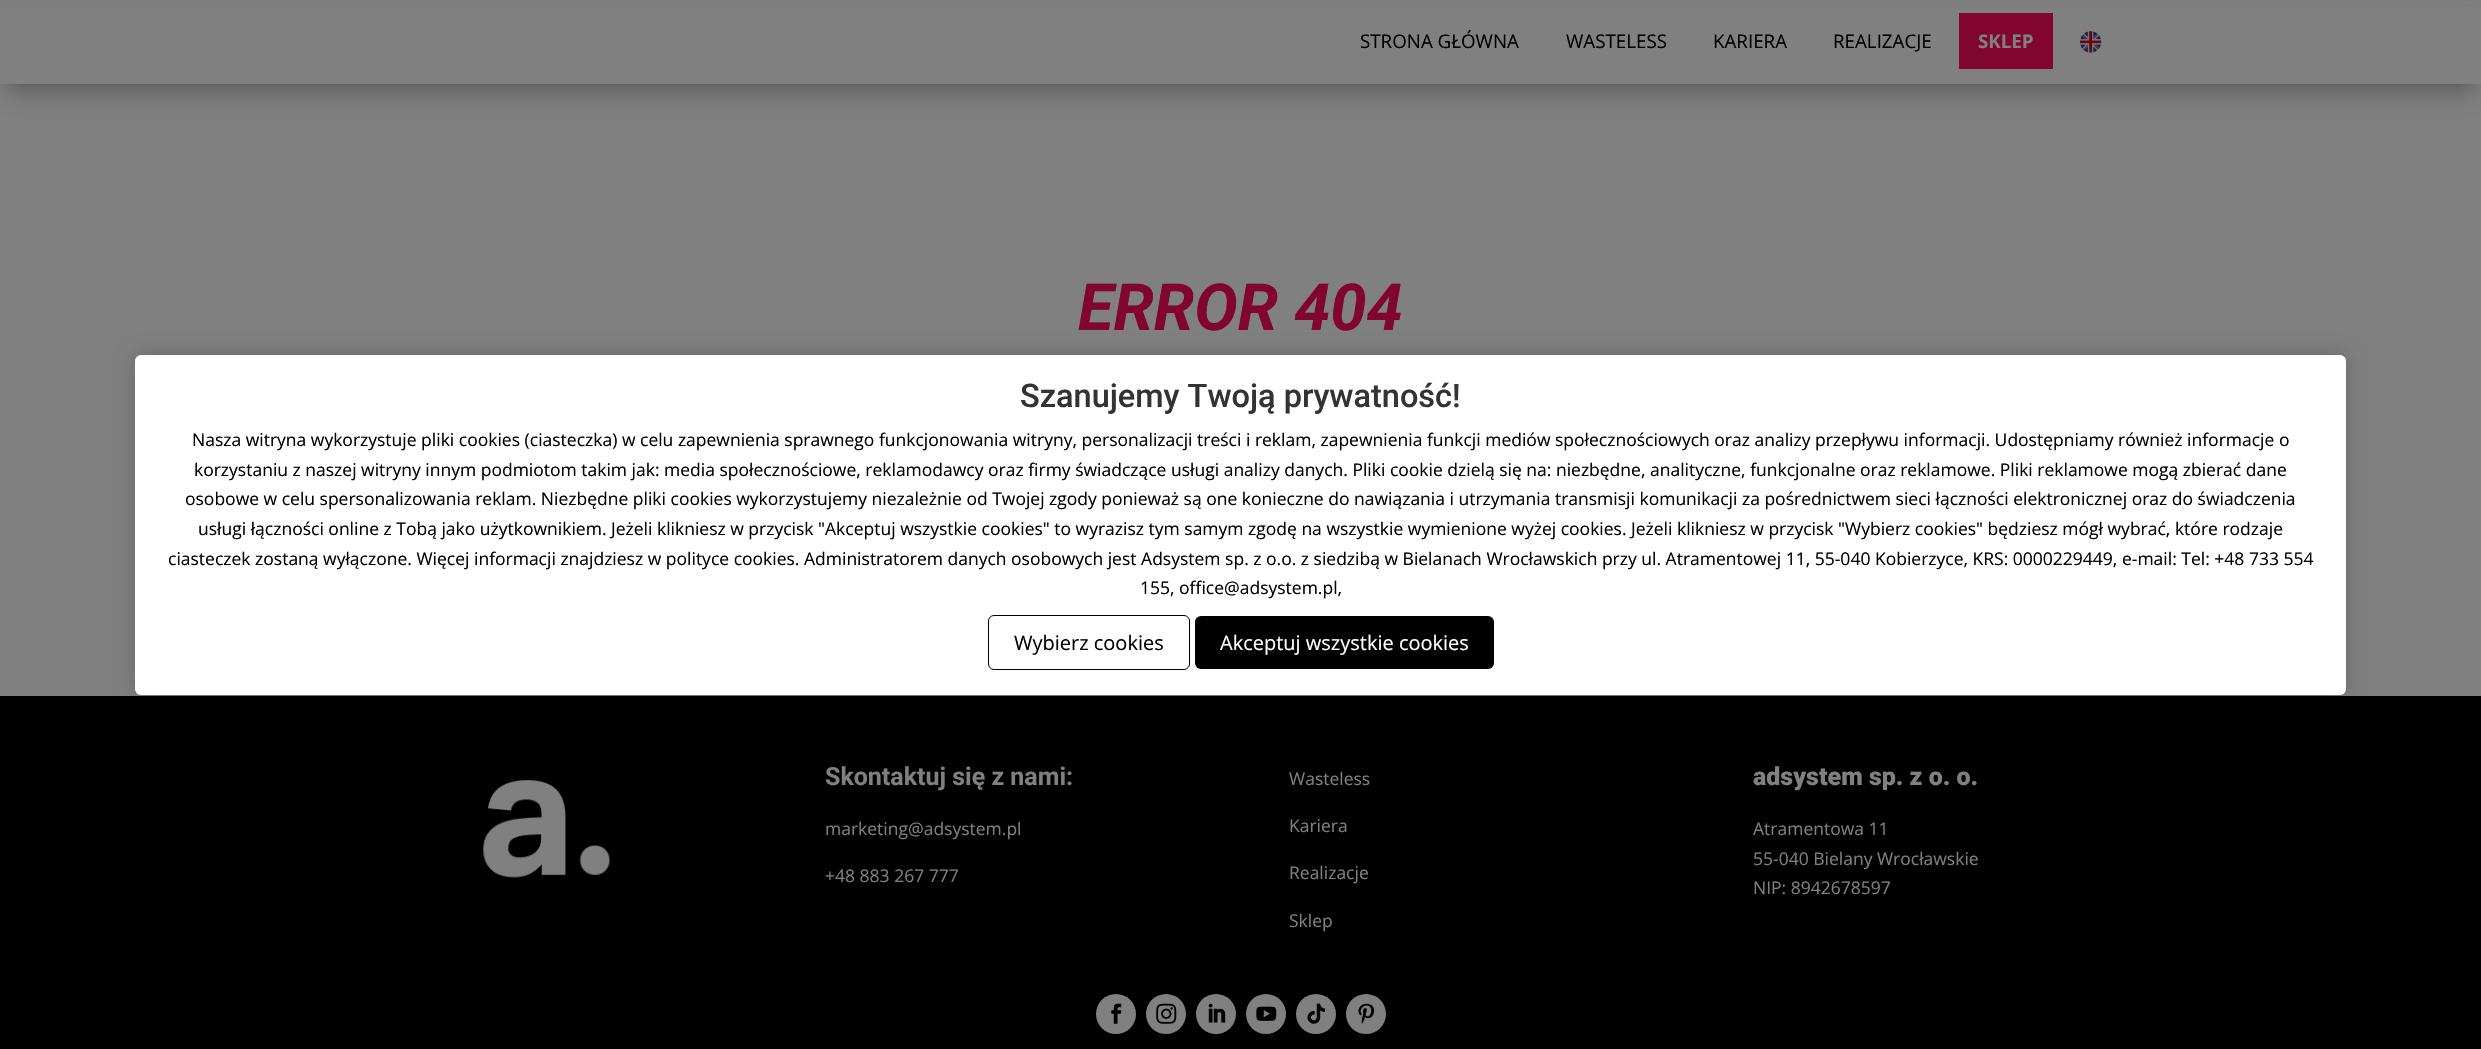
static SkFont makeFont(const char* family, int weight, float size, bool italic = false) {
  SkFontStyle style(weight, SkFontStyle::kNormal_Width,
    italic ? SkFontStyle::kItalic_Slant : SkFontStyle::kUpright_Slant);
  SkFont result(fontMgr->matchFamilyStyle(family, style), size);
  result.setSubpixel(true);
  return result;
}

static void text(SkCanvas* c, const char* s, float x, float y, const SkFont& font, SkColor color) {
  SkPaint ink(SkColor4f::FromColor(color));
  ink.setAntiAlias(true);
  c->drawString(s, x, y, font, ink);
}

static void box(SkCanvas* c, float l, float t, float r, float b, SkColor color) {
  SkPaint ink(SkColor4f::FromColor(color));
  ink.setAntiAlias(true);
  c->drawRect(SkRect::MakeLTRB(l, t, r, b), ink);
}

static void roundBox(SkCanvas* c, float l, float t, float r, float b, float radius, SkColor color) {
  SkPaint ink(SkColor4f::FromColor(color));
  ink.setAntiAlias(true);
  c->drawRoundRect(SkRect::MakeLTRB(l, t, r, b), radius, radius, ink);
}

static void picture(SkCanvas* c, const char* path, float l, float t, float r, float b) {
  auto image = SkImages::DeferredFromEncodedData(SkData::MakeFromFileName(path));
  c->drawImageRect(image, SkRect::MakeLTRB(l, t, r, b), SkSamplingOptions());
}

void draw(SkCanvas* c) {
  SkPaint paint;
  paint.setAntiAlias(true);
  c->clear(0xff808080);
  paint.setColor(0x4d000000);
  paint.setMaskFilter(SkMaskFilter::MakeBlur(kNormal_SkBlurStyle, 11));
  c->drawRect(SkRect::MakeLTRB(8, 23, 2474, 91), paint);
  paint.setMaskFilter(nullptr);
  box(c, 0, 7, 2481, 84, 0xff808080);
  SkFont face1 = makeFont("Open Sans", 400, 18.75f);
  text(c, "STRONA GŁÓWNA", 1360, 48, face1, 0xff000000);
  text(c, "WASTELESS", 1566, 48, face1, 0xff000000);
  text(c, "KARIERA", 1713, 48, face1, 0xff000000);
  text(c, "REALIZACJE", 1833, 48, face1, 0xff000000);
  box(c, 1959, 13, 2053, 69, 0xff80052f);
  SkFont face2 = makeFont("Open Sans", 700, 18.75f);
  text(c, "SKLEP", 1978, 48, face2, 0xff808080);
  picture(c, "img_01.png", 2080, 31, 2102, 53);
  SkFont face3 = makeFont("Roboto", 700, 65, true);
  text(c, "ERROR 404", 1078, 330, face3, 0xff80052f);
  box(c, 0, 696, 2481, 1049, 0xff000000);
  picture(c, "img_02.png", 483, 780, 611, 878);
  SkFont face4 = makeFont("Roboto", 700, 25);
  text(c, "Skontaktuj się z nami:", 825, 785, face4, 0xff808080);
  SkFont face5 = makeFont("Open Sans", 400, 17.5f);
  text(c, "marketing@adsystem.pl", 825, 835, face5, 0xff808080);
  text(c, "+48 883 267 777", 825, 882, face5, 0xff808080);
  text(c, "Wasteless", 1289, 785, face5, 0xff808080);
  text(c, "Kariera", 1289, 832, face5, 0xff808080);
  text(c, "Realizacje", 1289, 879, face5, 0xff808080);
  text(c, "Sklep", 1289, 927, face5, 0xff808080);
  SkFont face6 = makeFont("Roboto", 900, 25);
  text(c, "adsystem sp. z o. o.", 1753, 785, face6, 0xff808080);
  text(c, "Atramentowa 11", 1753, 835, face5, 0xff808080);
  text(c, "55-040 Bielany Wrocławskie", 1753, 865, face5, 0xff808080);
  text(c, "NIP: 8942678597", 1753, 894, face5, 0xff808080);
  paint.setColor(0xff808080);
  c->drawCircle(1116, 1014, 20, paint);
  picture(c, "img_03.png", 1111, 1003, 1122, 1024);
  c->drawCircle(1166, 1014, 20, paint);
  picture(c, "img_04.png", 1156, 1003, 1177, 1024);
  c->drawCircle(1216, 1014, 20, paint);
  picture(c, "img_05.png", 1208, 1003, 1226, 1023);
  c->drawCircle(1266, 1014, 20, paint);
  picture(c, "img_06.png", 1256, 1006, 1277, 1021);
  c->drawCircle(1316, 1014, 20, paint);
  picture(c, "img_07.png", 1307, 1003, 1325, 1024);
  c->drawCircle(1366, 1014, 20, paint);
  picture(c, "img_08.png", 1358, 1003, 1374, 1024);
  paint.setColor(0x33000000);
  paint.setMaskFilter(SkMaskFilter::MakeBlur(kNormal_SkBlurStyle, 9.5f));
  c->drawRoundRect(SkRect::MakeLTRB(135, 355, 2346, 695), 6, 6, paint);
  paint.setMaskFilter(nullptr);
  roundBox(c, 135, 355, 2346, 695, 6, 0xffffffff);
  SkFont face7 = makeFont("Roboto", 500, 32.5f);
  text(c, "Szanujemy Twoją prywatność!", 1020, 407, face7, 0xff333333);
  text(c, "Nasza witryna wykorzystuje pliki cookies (ciasteczka) w celu zapewnienia sprawnego funkcjonowania witryny, personalizacji treści i reklam, zapewnienia funkcji mediów społecznościowych oraz analizy przepływu informacji. Udostępniamy również informacje o", 192, 446, face5, 0xff000000);
  text(c, "korzystaniu z naszej witryny innym podmiotom takim jak: media społecznościowe, reklamodawcy oraz firmy świadczące usługi analizy danych. Pliki cookie dzielą się na: niezbędne, analityczne, funkcjonalne oraz reklamowe. Pliki reklamowe mogą zbierać dane", 194, 476, face5, 0xff000000);
  text(c, "osobowe w celu spersonalizowania reklam. Niezbędne pliki cookies wykorzystujemy niezależnie od Twojej zgody ponieważ są one konieczne do nawiązania i utrzymania transmisji komunikacji za pośrednictwem sieci łączności elektronicznej oraz do świadczenia", 185, 505, face5, 0xff000000);
  text(c, "usługi łączności online z Tobą jako użytkownikiem. Jeżeli klikniesz w przycisk \"Akceptuj wszystkie cookies\" to wyrazisz tym samym zgodę na wszystkie wymienione wyżej cookies. Jeżeli klikniesz w przycisk \"Wybierz cookies\" będziesz mógł wybrać, które rodzaje", 198, 535, face5, 0xff000000);
  text(c, "ciasteczek zostaną wyłączone. Więcej informacji znajdziesz w polityce cookies. Administratorem danych osobowych jest Adsystem sp. z o.o. z siedzibą w Bielanach Wrocławskich przy ul. Atramentowej 11, 55-040 Kobierzyce, KRS: 0000229449, e-mail: Tel: +48 733 554", 168, 565, face5, 0xff000000);
  text(c, "155, office@adsystem.pl,", 1140, 594, face5, 0xff000000);
  paint.setStyle(SkPaint::kStroke_Style);
  paint.setStrokeWidth(1);
  paint.setColor(0xff000000);
  c->drawRoundRect(SkRect::MakeLTRB(988.5f, 615.5f, 1189.5f, 669.5f), 5.5f, 5.5f, paint);
  SkFont face8 = makeFont("Open Sans", 400, 20);
  text(c, "Wybierz cookies", 1014, 650, face8, 0xff000000);
  roundBox(c, 1195, 616, 1494, 669, 6, 0xff000000);
  text(c, "Akceptuj wszystkie cookies", 1220, 650, face8, 0xffffffff);
}
